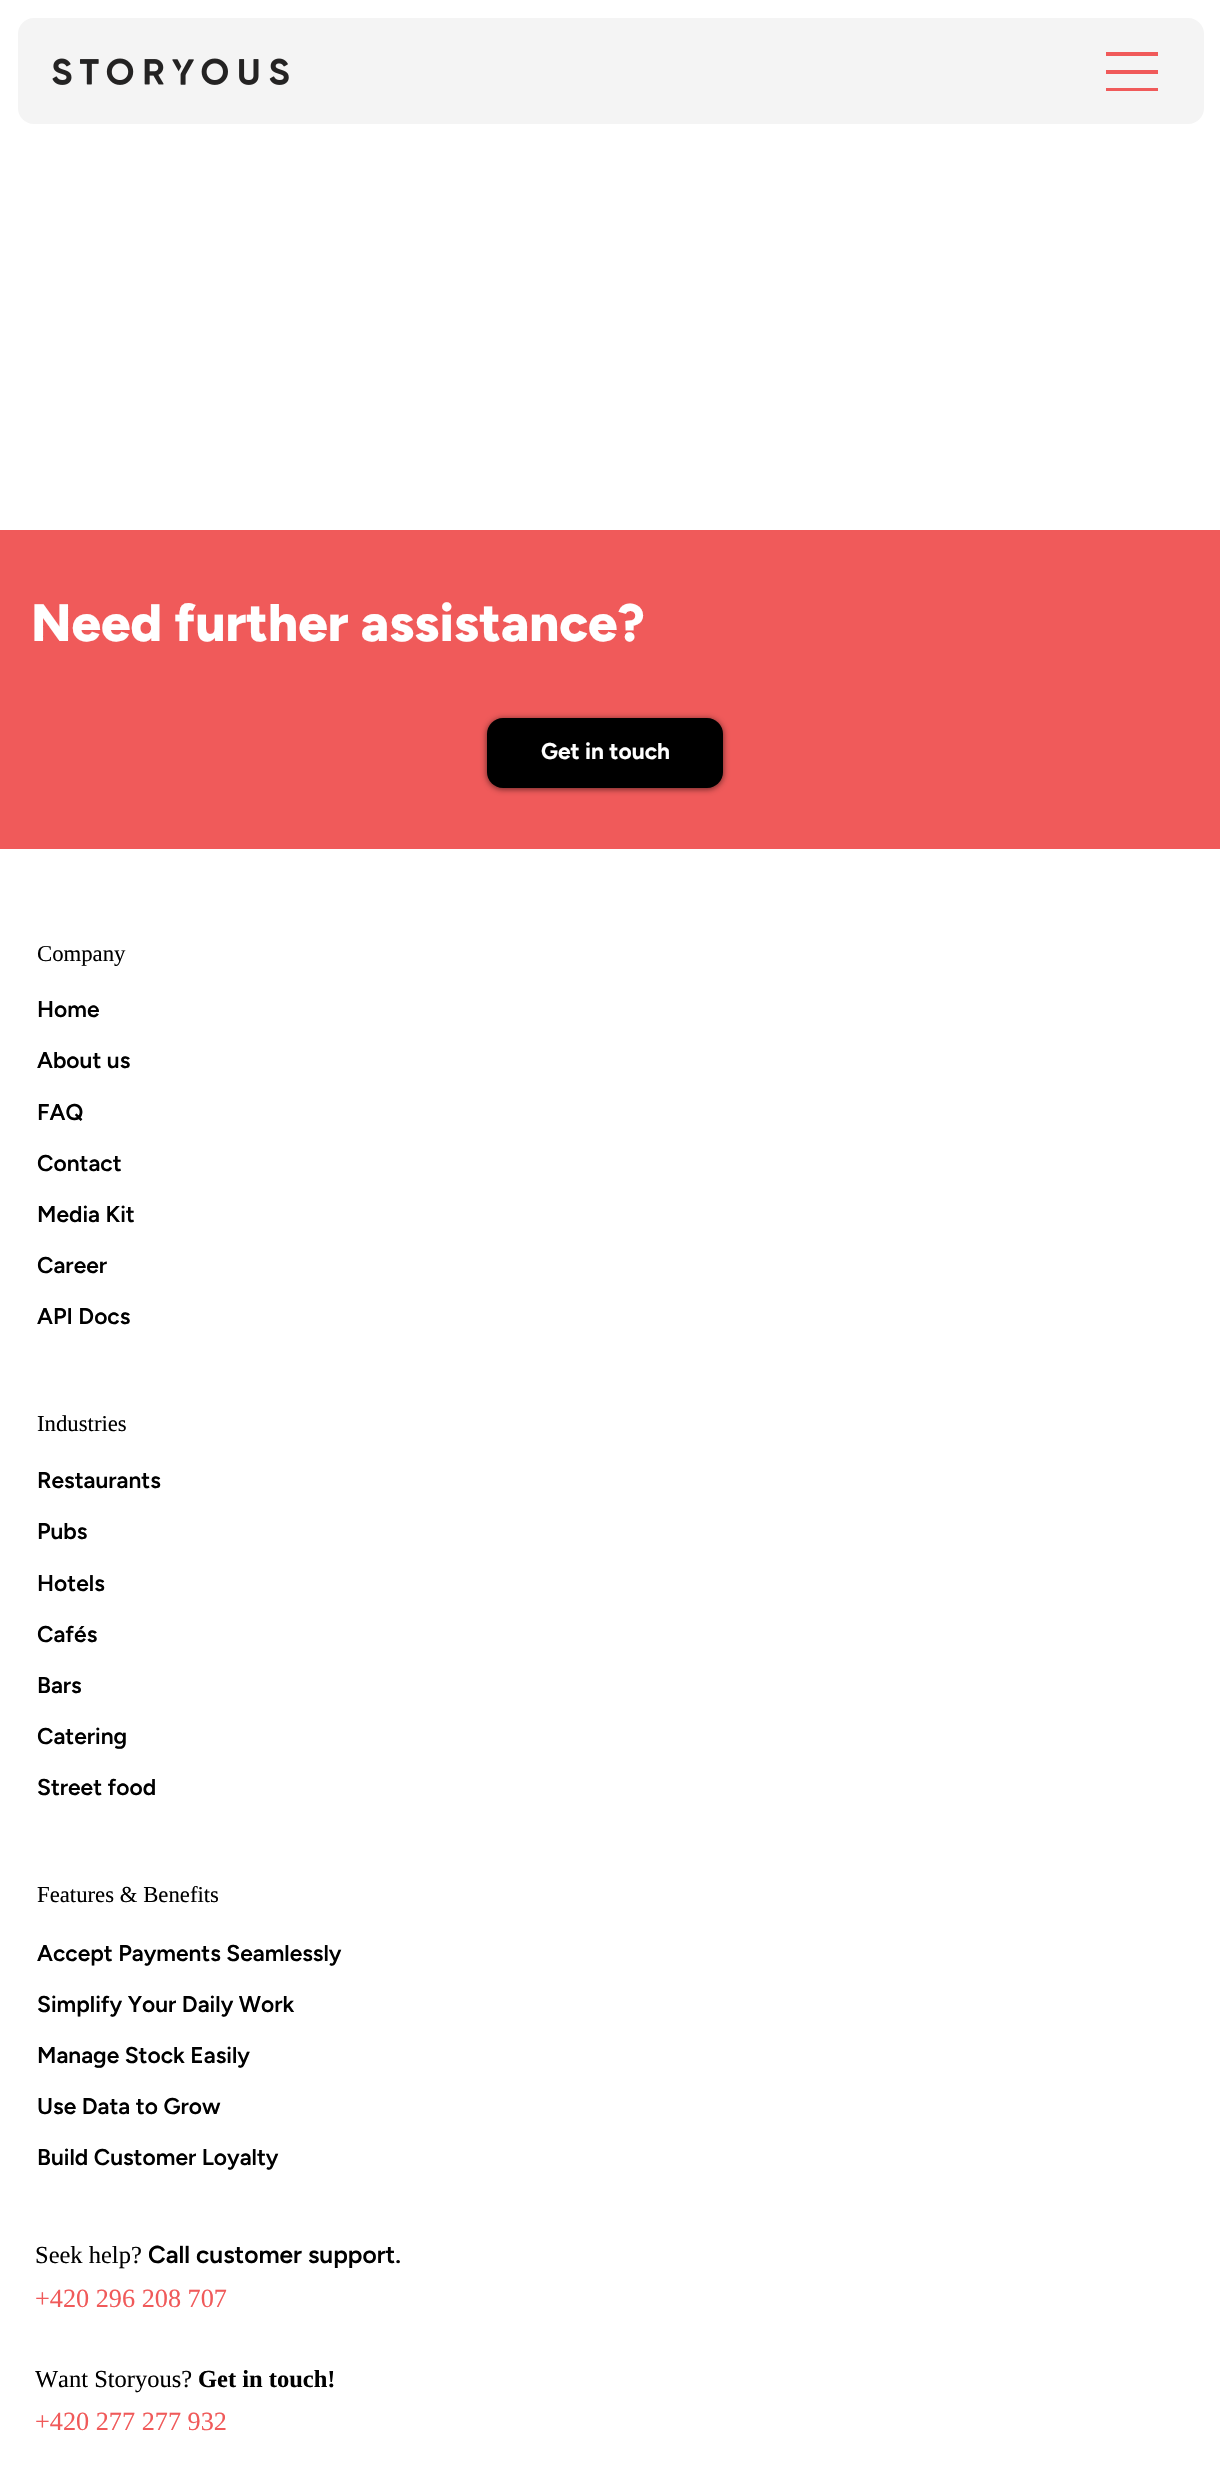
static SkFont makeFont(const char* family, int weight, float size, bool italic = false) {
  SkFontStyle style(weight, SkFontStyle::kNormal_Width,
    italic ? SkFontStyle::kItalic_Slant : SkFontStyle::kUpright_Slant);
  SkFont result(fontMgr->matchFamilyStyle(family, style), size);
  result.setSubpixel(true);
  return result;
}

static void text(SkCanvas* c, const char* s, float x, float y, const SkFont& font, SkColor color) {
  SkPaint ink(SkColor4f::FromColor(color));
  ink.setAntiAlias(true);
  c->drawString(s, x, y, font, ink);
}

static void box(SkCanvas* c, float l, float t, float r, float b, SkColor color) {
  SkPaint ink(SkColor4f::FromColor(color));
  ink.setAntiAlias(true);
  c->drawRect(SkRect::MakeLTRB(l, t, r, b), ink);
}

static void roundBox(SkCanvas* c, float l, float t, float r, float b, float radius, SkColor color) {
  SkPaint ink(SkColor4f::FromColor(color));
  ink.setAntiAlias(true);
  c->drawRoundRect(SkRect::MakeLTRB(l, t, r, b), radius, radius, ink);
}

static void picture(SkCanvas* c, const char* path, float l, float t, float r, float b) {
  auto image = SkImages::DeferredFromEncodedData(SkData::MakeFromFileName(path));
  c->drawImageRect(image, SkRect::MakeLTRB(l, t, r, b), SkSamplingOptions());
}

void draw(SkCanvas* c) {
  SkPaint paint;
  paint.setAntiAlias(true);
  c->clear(0xffffffff);
  roundBox(c, 18, 18, 1204, 124, 16, 0xfff4f4f4);
  picture(c, "img_01.png", 52, 58, 289, 85);
  paint.setColor(0xfff05a5a);
  c->drawPath(SkPathBuilder(SkPathFillType::kEvenOdd).moveTo(1158, 56).lineTo(1106, 56).lineTo(1106, 52).lineTo(1158, 52).close().moveTo(1158, 74).lineTo(1106, 74).lineTo(1106, 70).lineTo(1158, 70).close().moveTo(1158, 91).lineTo(1106, 91).lineTo(1106, 88).lineTo(1158, 88).close().detach(), paint);
  box(c, 0, 530, 1220, 849, 0xfff05a5a);
  SkFont face1 = makeFont("Figtree", 800, 52.5f);
  text(c, "Need further assistance?", 31, 641, face1, 0xffffffff);
  paint.setColor(0x99000000);
  paint.setMaskFilter(SkMaskFilter::MakeBlur(kNormal_SkBlurStyle, 3));
  c->drawRoundRect(SkRect::MakeLTRB(487, 719, 723, 789), 16, 16, paint);
  paint.setMaskFilter(nullptr);
  roundBox(c, 487, 718, 723, 788, 16, 0xff000000);
  SkFont face2 = makeFont("Figtree", 700, 22.75f);
  text(c, "Get in touch", 541, 759, face2, 0xffffffff);
  SkFont face3 = makeFont("Liberation Serif", 400, 22.75f);
  text(c, "Company", 37, 961, face3, 0xff000000);
  SkFont face4 = makeFont("Figtree", 600, 22.75f);
  text(c, "Home", 37, 1017, face4, 0xff000000);
  text(c, "About us", 37, 1068, face4, 0xff000000);
  text(c, "FAQ", 37, 1120, face4, 0xff000000);
  text(c, "Contact", 37, 1171, face4, 0xff000000);
  text(c, "Media Kit", 37, 1222, face4, 0xff000000);
  text(c, "Career", 37, 1273, face4, 0xff000000);
  text(c, "API Docs", 37, 1324, face4, 0xff000000);
  text(c, "Industries", 37, 1431, face3, 0xff000000);
  text(c, "Restaurants", 37, 1488, face4, 0xff000000);
  text(c, "Pubs", 37, 1539, face4, 0xff000000);
  text(c, "Hotels", 37, 1591, face4, 0xff000000);
  text(c, "Cafés", 37, 1642, face4, 0xff000000);
  text(c, "Bars", 37, 1693, face4, 0xff000000);
  text(c, "Catering", 37, 1744, face4, 0xff000000);
  text(c, "Street food", 37, 1795, face4, 0xff000000);
  text(c, "Features & Benefits", 37, 1902, face3, 0xff000000);
  text(c, "Accept Payments Seamlessly", 37, 1961, face4, 0xff000000);
  text(c, "Simplify Your Daily Work", 37, 2012, face4, 0xff000000);
  text(c, "Manage Stock Easily", 37, 2063, face4, 0xff000000);
  text(c, "Use Data to Grow", 37, 2114, face4, 0xff000000);
  text(c, "Build Customer Loyalty", 37, 2165, face4, 0xff000000);
  SkFont face5 = makeFont("Liberation Serif", 400, 24.5f);
  text(c, "Seek help?", 35, 2263, face5, 0xff000000);
  SkFont face6 = makeFont("Figtree", 600, 24.5f);
  text(c, "Call customer support.", 148, 2263, face6, 0xff000000);
  SkFont face7 = makeFont("Liberation Serif", 400, 26.25f);
  text(c, "+420 296 208 707", 35, 2307, face7, 0xfff05a5a);
  text(c, "Want Storyous?", 35, 2387, face5, 0xff000000);
  SkFont face8 = makeFont("Liberation Serif", 700, 24.5f);
  text(c, "Get in touch!", 198, 2387, face8, 0xff000000);
  text(c, "+420 277 277 932", 35, 2430, face7, 0xfff05a5a);
}
